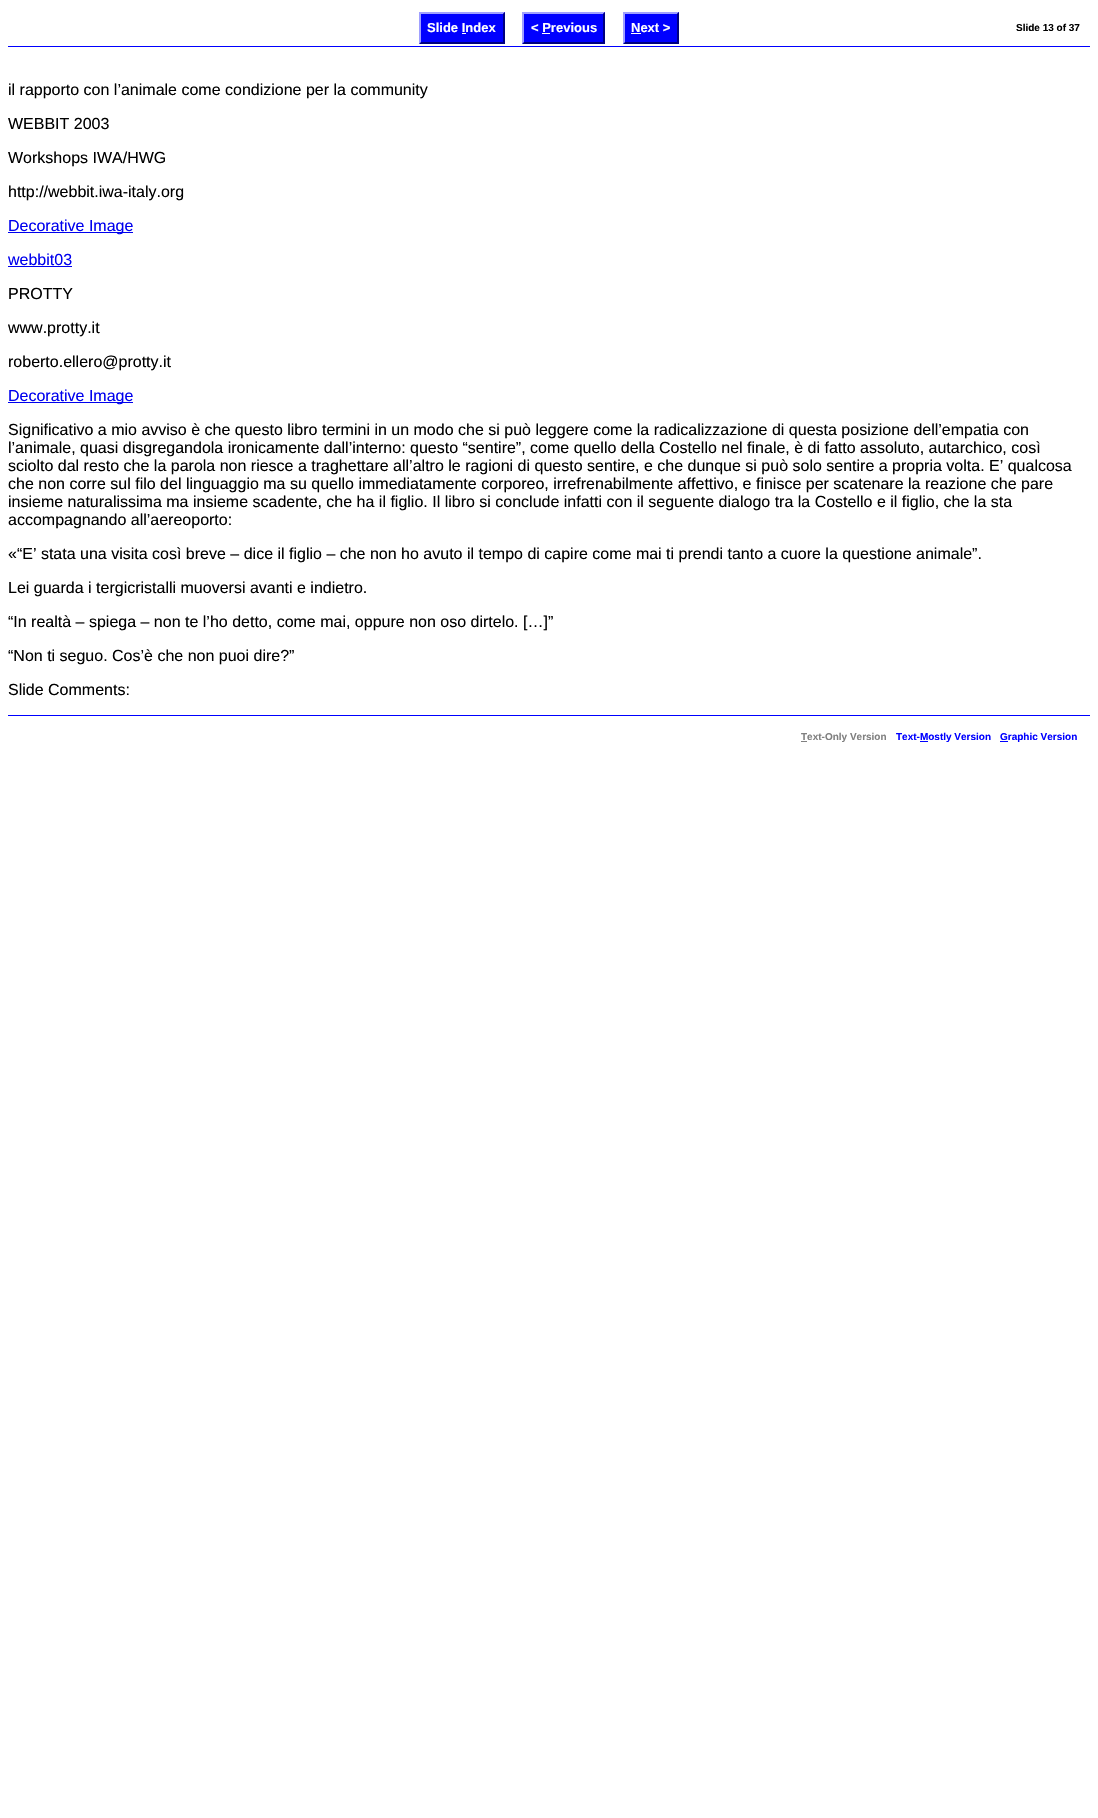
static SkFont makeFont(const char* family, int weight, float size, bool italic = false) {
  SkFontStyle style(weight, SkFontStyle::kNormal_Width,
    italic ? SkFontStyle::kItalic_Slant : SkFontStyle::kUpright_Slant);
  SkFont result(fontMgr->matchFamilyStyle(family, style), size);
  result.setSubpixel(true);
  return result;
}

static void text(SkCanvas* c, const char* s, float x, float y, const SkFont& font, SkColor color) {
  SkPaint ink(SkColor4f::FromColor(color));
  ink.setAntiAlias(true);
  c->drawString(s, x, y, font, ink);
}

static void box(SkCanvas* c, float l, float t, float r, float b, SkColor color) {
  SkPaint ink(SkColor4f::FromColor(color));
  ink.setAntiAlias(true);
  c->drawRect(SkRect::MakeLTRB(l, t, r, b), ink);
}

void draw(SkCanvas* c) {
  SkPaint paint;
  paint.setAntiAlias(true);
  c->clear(0xffffffff);
  box(c, 8, 46, 1090, 47, 0xff0000ff);
  box(c, 419, 14, 462, 44, 0xff0000ff);
  box(c, 462, 12, 466, 44, 0xff0000ff);
  box(c, 466, 12, 505, 42, 0xff0000ff);
  SkFont face1 = makeFont("Liberation Sans", 700, 13);
  text(c, "Slide Index", 427, 32, face1, 0xffffffff);
  box(c, 419, 12, 462, 14, 0xffa0a0ff);
  paint.setColor(0xff000080);
  c->drawPath(SkPathBuilder().moveTo(462, 44).lineTo(419, 44).lineTo(421, 42).lineTo(462, 42).close().detach(), paint);
  paint.setColor(0xffa0a0ff);
  c->drawPath(SkPathBuilder().moveTo(419, 44).lineTo(419, 12).lineTo(421, 14).lineTo(421, 42).close().detach(), paint);
  box(c, 462, 12, 466, 14, 0xffa0a0ff);
  box(c, 462, 42, 466, 44, 0xff000080);
  c->drawPath(SkPathBuilder().moveTo(466, 12).lineTo(505, 12).lineTo(503, 14).lineTo(466, 14).close().detach(), paint);
  paint.setColor(0xff000080);
  c->drawPath(SkPathBuilder().moveTo(505, 12).lineTo(505, 44).lineTo(503, 42).lineTo(503, 14).close().detach(), paint);
  box(c, 466, 42, 505, 44, 0xff000080);
  box(c, 462, 33, 466, 34, 0xffffffff);
  box(c, 522, 14, 542, 44, 0xff0000ff);
  box(c, 542, 12, 550, 44, 0xff0000ff);
  box(c, 550, 12, 605, 42, 0xff0000ff);
  text(c, "< Previous", 531, 32, face1, 0xffffffff);
  box(c, 522, 12, 542, 14, 0xffa0a0ff);
  c->drawPath(SkPathBuilder().moveTo(542, 44).lineTo(522, 44).lineTo(524, 42).lineTo(542, 42).close().detach(), paint);
  paint.setColor(0xffa0a0ff);
  c->drawPath(SkPathBuilder().moveTo(522, 44).lineTo(522, 12).lineTo(524, 14).lineTo(524, 42).close().detach(), paint);
  box(c, 542, 12, 550, 14, 0xffa0a0ff);
  box(c, 542, 42, 550, 44, 0xff000080);
  c->drawPath(SkPathBuilder().moveTo(550, 12).lineTo(605, 12).lineTo(603, 14).lineTo(550, 14).close().detach(), paint);
  paint.setColor(0xff000080);
  c->drawPath(SkPathBuilder().moveTo(605, 12).lineTo(605, 44).lineTo(603, 42).lineTo(603, 14).close().detach(), paint);
  box(c, 550, 42, 605, 44, 0xff000080);
  box(c, 542, 33, 550, 34, 0xffffffff);
  box(c, 623, 14, 641, 44, 0xff0000ff);
  box(c, 641, 12, 679, 42, 0xff0000ff);
  text(c, "Next >", 631, 32, face1, 0xffffffff);
  box(c, 623, 12, 641, 14, 0xffa0a0ff);
  c->drawPath(SkPathBuilder().moveTo(641, 44).lineTo(623, 44).lineTo(625, 42).lineTo(641, 42).close().detach(), paint);
  paint.setColor(0xffa0a0ff);
  c->drawPath(SkPathBuilder().moveTo(623, 44).lineTo(623, 12).lineTo(625, 14).lineTo(625, 42).close().detach(), paint);
  c->drawPath(SkPathBuilder().moveTo(641, 12).lineTo(679, 12).lineTo(677, 14).lineTo(641, 14).close().detach(), paint);
  paint.setColor(0xff000080);
  c->drawPath(SkPathBuilder().moveTo(679, 12).lineTo(679, 44).lineTo(677, 42).lineTo(677, 14).close().detach(), paint);
  box(c, 641, 42, 679, 44, 0xff000080);
  box(c, 631, 33, 641, 34, 0xffffffff);
  SkFont face2 = makeFont("Liberation Sans", 700, 10);
  text(c, "Slide 13 of 37", 1016, 31, face2, 0xff000000);
  SkFont face3 = makeFont("Liberation Sans", 400, 16);
  text(c, "il rapporto con l’animale come condizione per la community", 8, 95, face3, 0xff000000);
  text(c, "WEBBIT 2003", 8, 129, face3, 0xff000000);
  text(c, "Workshops IWA/HWG", 8, 163, face3, 0xff000000);
  text(c, "http://webbit.iwa-italy.org", 8, 197, face3, 0xff000000);
  box(c, 8, 232, 133, 233, 0xff0000ee);
  text(c, "Decorative Image", 8, 231, face3, 0xff0000ee);
  text(c, "webbit03", 8, 265, face3, 0xff0000ee);
  box(c, 8, 266, 72, 267, 0xff0000ee);
  text(c, "PROTTY", 8, 299, face3, 0xff000000);
  text(c, "www.protty.it", 8, 333, face3, 0xff000000);
  text(c, "roberto.ellero@protty.it", 8, 367, face3, 0xff000000);
  box(c, 8, 402, 133, 403, 0xff0000ee);
  text(c, "Decorative Image", 8, 401, face3, 0xff0000ee);
  text(c, "Significativo a mio avviso è che questo libro termini in un modo che si può leggere come la radicalizzazione di questa posizione dell’empatia con", 8, 435, face3, 0xff000000);
  text(c, "l’animale, quasi disgregandola ironicamente dall’interno: questo “sentire”, come quello della Costello nel finale, è di fatto assoluto, autarchico, così", 8, 453, face3, 0xff000000);
  text(c, "sciolto dal resto che la parola non riesce a traghettare all’altro le ragioni di questo sentire, e che dunque si può solo sentire a propria volta. E’ qualcosa", 8, 471, face3, 0xff000000);
  text(c, "che non corre sul filo del linguaggio ma su quello immediatamente corporeo, irrefrenabilmente affettivo, e finisce per scatenare la reazione che pare", 8, 489, face3, 0xff000000);
  text(c, "insieme naturalissima ma insieme scadente, che ha il figlio. Il libro si conclude infatti con il seguente dialogo tra la Costello e il figlio, che la sta", 8, 507, face3, 0xff000000);
  text(c, "accompagnando all’aereoporto:", 8, 525, face3, 0xff000000);
  text(c, "«“E’ stata una visita così breve – dice il figlio – che non ho avuto il tempo di capire come mai ti prendi tanto a cuore la questione animale”.", 8, 559, face3, 0xff000000);
  text(c, "Lei guarda i tergicristalli muoversi avanti e indietro.", 8, 593, face3, 0xff000000);
  text(c, "“In realtà – spiega – non te l’ho detto, come mai, oppure non oso dirtelo. […]”", 8, 627, face3, 0xff000000);
  text(c, "“Non ti seguo. Cos’è che non puoi dire?”", 8, 661, face3, 0xff000000);
  text(c, "Slide Comments:", 8, 695, face3, 0xff000000);
  box(c, 8, 715, 1090, 716, 0xff0000ff);
  box(c, 801, 741, 807, 742, 0xff808080);
  text(c, "Text-Only Version", 801, 740, face2, 0xff808080);
  text(c, "Text-Mostly Version", 896, 740, face2, 0xff0000ff);
  box(c, 920, 741, 928, 742, 0xff0000ff);
  box(c, 1000, 741, 1008, 742, 0xff0000ff);
  text(c, "Graphic Version", 1000, 740, face2, 0xff0000ff);
}
